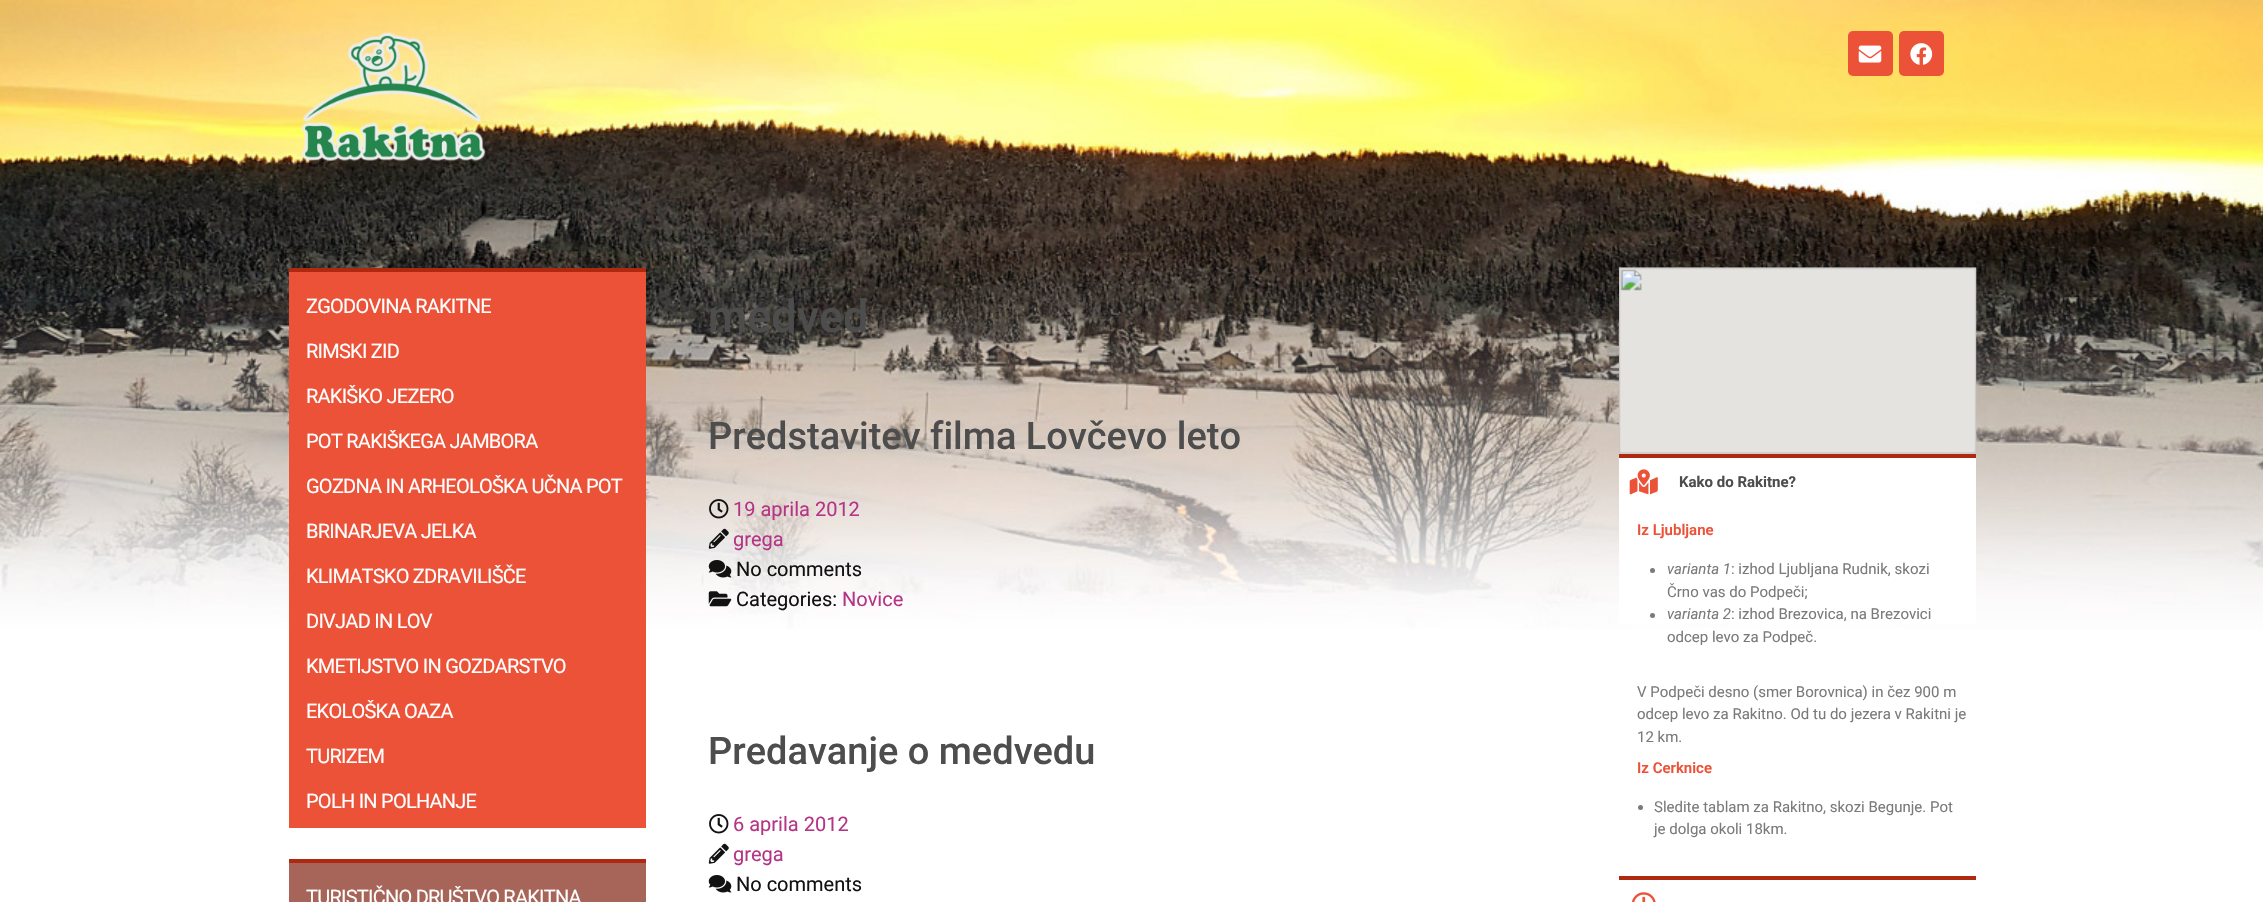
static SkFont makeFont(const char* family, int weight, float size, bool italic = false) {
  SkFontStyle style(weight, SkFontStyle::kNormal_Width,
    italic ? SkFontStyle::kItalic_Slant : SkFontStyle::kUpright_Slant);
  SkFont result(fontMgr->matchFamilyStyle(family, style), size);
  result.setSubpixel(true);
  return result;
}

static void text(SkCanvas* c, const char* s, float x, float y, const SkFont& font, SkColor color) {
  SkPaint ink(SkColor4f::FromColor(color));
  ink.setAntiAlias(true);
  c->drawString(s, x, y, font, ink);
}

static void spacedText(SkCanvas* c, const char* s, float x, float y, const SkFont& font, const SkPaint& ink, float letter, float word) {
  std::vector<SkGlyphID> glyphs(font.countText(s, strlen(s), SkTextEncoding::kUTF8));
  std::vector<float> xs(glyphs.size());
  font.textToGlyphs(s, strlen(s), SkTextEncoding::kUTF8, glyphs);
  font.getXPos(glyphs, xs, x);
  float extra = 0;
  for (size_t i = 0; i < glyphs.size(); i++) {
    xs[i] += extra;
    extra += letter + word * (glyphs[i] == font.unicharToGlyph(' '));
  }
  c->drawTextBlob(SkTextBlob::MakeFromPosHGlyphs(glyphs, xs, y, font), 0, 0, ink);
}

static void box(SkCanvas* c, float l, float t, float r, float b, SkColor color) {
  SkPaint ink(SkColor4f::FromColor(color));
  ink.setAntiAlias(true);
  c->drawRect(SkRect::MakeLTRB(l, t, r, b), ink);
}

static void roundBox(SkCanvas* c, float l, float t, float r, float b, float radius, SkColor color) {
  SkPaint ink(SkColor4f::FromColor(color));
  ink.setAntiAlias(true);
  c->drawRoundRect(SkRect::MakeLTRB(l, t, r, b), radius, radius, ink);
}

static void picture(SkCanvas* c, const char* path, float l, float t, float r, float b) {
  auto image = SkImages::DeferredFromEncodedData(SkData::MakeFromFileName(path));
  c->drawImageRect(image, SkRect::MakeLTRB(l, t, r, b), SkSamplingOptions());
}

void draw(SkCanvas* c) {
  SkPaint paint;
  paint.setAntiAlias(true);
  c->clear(0xffffffff);
  picture(c, "img_01.png", 0, 0, 2263, 629);
  picture(c, "img_02.png", 301, 32, 486, 162);
  roundBox(c, 1848, 31, 1893, 76, 5, 0xffec5237);
  picture(c, "img_03.png", 1858, 45, 1882, 63);
  roundBox(c, 1899, 31, 1944, 76, 5, 0xffec5237);
  picture(c, "img_04.png", 1910, 43, 1933, 65);
  box(c, 289, 272, 646, 828, 0xffec5237);
  box(c, 289, 268, 646, 272, 0xffaf2911);
  SkFont face1 = makeFont("Roboto", 400, 20);
  paint.setColor(0xffffffff);
  spacedText(c, "ZGODOVINA RAKITNE", 306, 313, face1, paint, -0.75f, 0);
  spacedText(c, "RIMSKI ZID", 306, 358, face1, paint, -0.75f, 0);
  spacedText(c, "RAKIŠKO JEZERO", 306, 403, face1, paint, -0.75f, 0);
  spacedText(c, "POT RAKIŠKEGA JAMBORA", 306, 448, face1, paint, -0.75f, 0);
  spacedText(c, "GOZDNA IN ARHEOLOŠKA UČNA POT", 306, 493, face1, paint, -0.75f, 0);
  spacedText(c, "BRINARJEVA JELKA", 306, 538, face1, paint, -0.75f, 0);
  spacedText(c, "KLIMATSKO ZDRAVILIŠČE", 306, 583, face1, paint, -0.75f, 0);
  spacedText(c, "DIVJAD IN LOV", 306, 628, face1, paint, -0.75f, 0);
  spacedText(c, "KMETIJSTVO IN GOZDARSTVO", 306, 673, face1, paint, -0.75f, 0);
  spacedText(c, "EKOLOŠKA OAZA", 306, 718, face1, paint, -0.75f, 0);
  spacedText(c, "TURIZEM", 306, 763, face1, paint, -0.75f, 0);
  spacedText(c, "POLH IN POLHANJE", 306, 808, face1, paint, -0.75f, 0);
  box(c, 289, 863, 646, 902, 0xffa76458);
  box(c, 289, 859, 646, 863, 0xffaf2911);
  spacedText(c, "TURISTIČNO DRUŠTVO RAKITNA", 306, 904, face1, paint, -0.75f, 0);
  SkFont face2 = makeFont("Roboto", 500, 45);
  text(c, "medved", 708, 332, face2, 0xff4d4d4d);
  SkFont face3 = makeFont("Roboto", 500, 38);
  text(c, "Predstavitev filma Lovčevo leto", 708, 449, face3, 0xff4d4d4d);
  picture(c, "img_05.png", 709, 499, 729, 519);
  text(c, "19 aprila 2012", 733, 516, face1, 0xffb53486);
  picture(c, "img_06.png", 708, 528, 729, 549);
  text(c, "grega", 733, 546, face1, 0xffb53486);
  picture(c, "img_07.png", 708, 560, 732, 578);
  text(c, "No comments", 736, 576, face1, 0xff121212);
  picture(c, "img_08.png", 708, 591, 732, 607);
  text(c, "Categories:", 736, 606, face1, 0xff121212);
  text(c, "Novice", 842, 606, face1, 0xffb53486);
  text(c, "Predavanje o medvedu", 708, 764, face3, 0xff4d4d4d);
  picture(c, "img_09.png", 709, 814, 729, 834);
  text(c, "6 aprila 2012", 733, 831, face1, 0xffb53486);
  picture(c, "img_10.png", 708, 843, 729, 864);
  text(c, "grega", 733, 861, face1, 0xffb53486);
  picture(c, "img_11.png", 708, 875, 732, 893);
  text(c, "No comments", 736, 891, face1, 0xff121212);
  picture(c, "img_12.png", 1619, 267, 1977, 454);
  box(c, 1619, 458, 1976, 624, 0xffffffff);
  box(c, 1619, 454, 1976, 458, 0xffaf2911);
  picture(c, "img_13.png", 1629, 469, 1658, 495);
  SkFont face4 = makeFont("Roboto", 700, 15);
  text(c, "Kako do Rakitne?", 1679, 487, face4, 0xff4d4d4d);
  SkFont face5 = makeFont("Roboto", 600, 15);
  text(c, "Iz Ljubljane", 1637, 535, face5, 0xffec5237);
  paint.setColor(0xff7a7a7a);
  c->drawCircle(1652.5f, 570.5f, 2.5f, paint);
  SkFont face6 = makeFont("Roboto", 400, 15, true);
  text(c, "varianta 1", 1667, 574, face6, 0xff7a7a7a);
  SkFont face7 = makeFont("Roboto", 400, 15);
  text(c, ": izhod Ljubljana Rudnik, skozi", 1731, 574, face7, 0xff7a7a7a);
  text(c, "Črno vas do Podpeči;", 1667, 597, face7, 0xff7a7a7a);
  c->drawCircle(1652.5f, 615.5f, 2.5f, paint);
  text(c, "varianta 2", 1667, 619, face6, 0xff7a7a7a);
  text(c, ": izhod Brezovica, na Brezovici", 1731, 619, face7, 0xff7a7a7a);
  text(c, "odcep levo za Podpeč.", 1667, 642, face7, 0xff7a7a7a);
  text(c, "V Podpeči desno (smer Borovnica) in čez 900 m", 1637, 697, face7, 0xff7a7a7a);
  text(c, "odcep levo za Rakitno. Od tu do jezera v Rakitni je", 1637, 719, face7, 0xff7a7a7a);
  text(c, "12 km.", 1637, 742, face7, 0xff7a7a7a);
  text(c, "Iz Cerknice", 1637, 773, face5, 0xffec5237);
  c->drawCircle(1640.5f, 807.5f, 2.5f, paint);
  text(c, "Sledite tablam za Rakitno, skozi Begunje. Pot", 1654, 812, face7, 0xff7a7a7a);
  text(c, "je dolga okoli 18km.", 1654, 834, face7, 0xff7a7a7a);
  box(c, 1619, 876, 1976, 880, 0xffaf2911);
  picture(c, "img_14.png", 1631, 892, 1656, 902);
}
